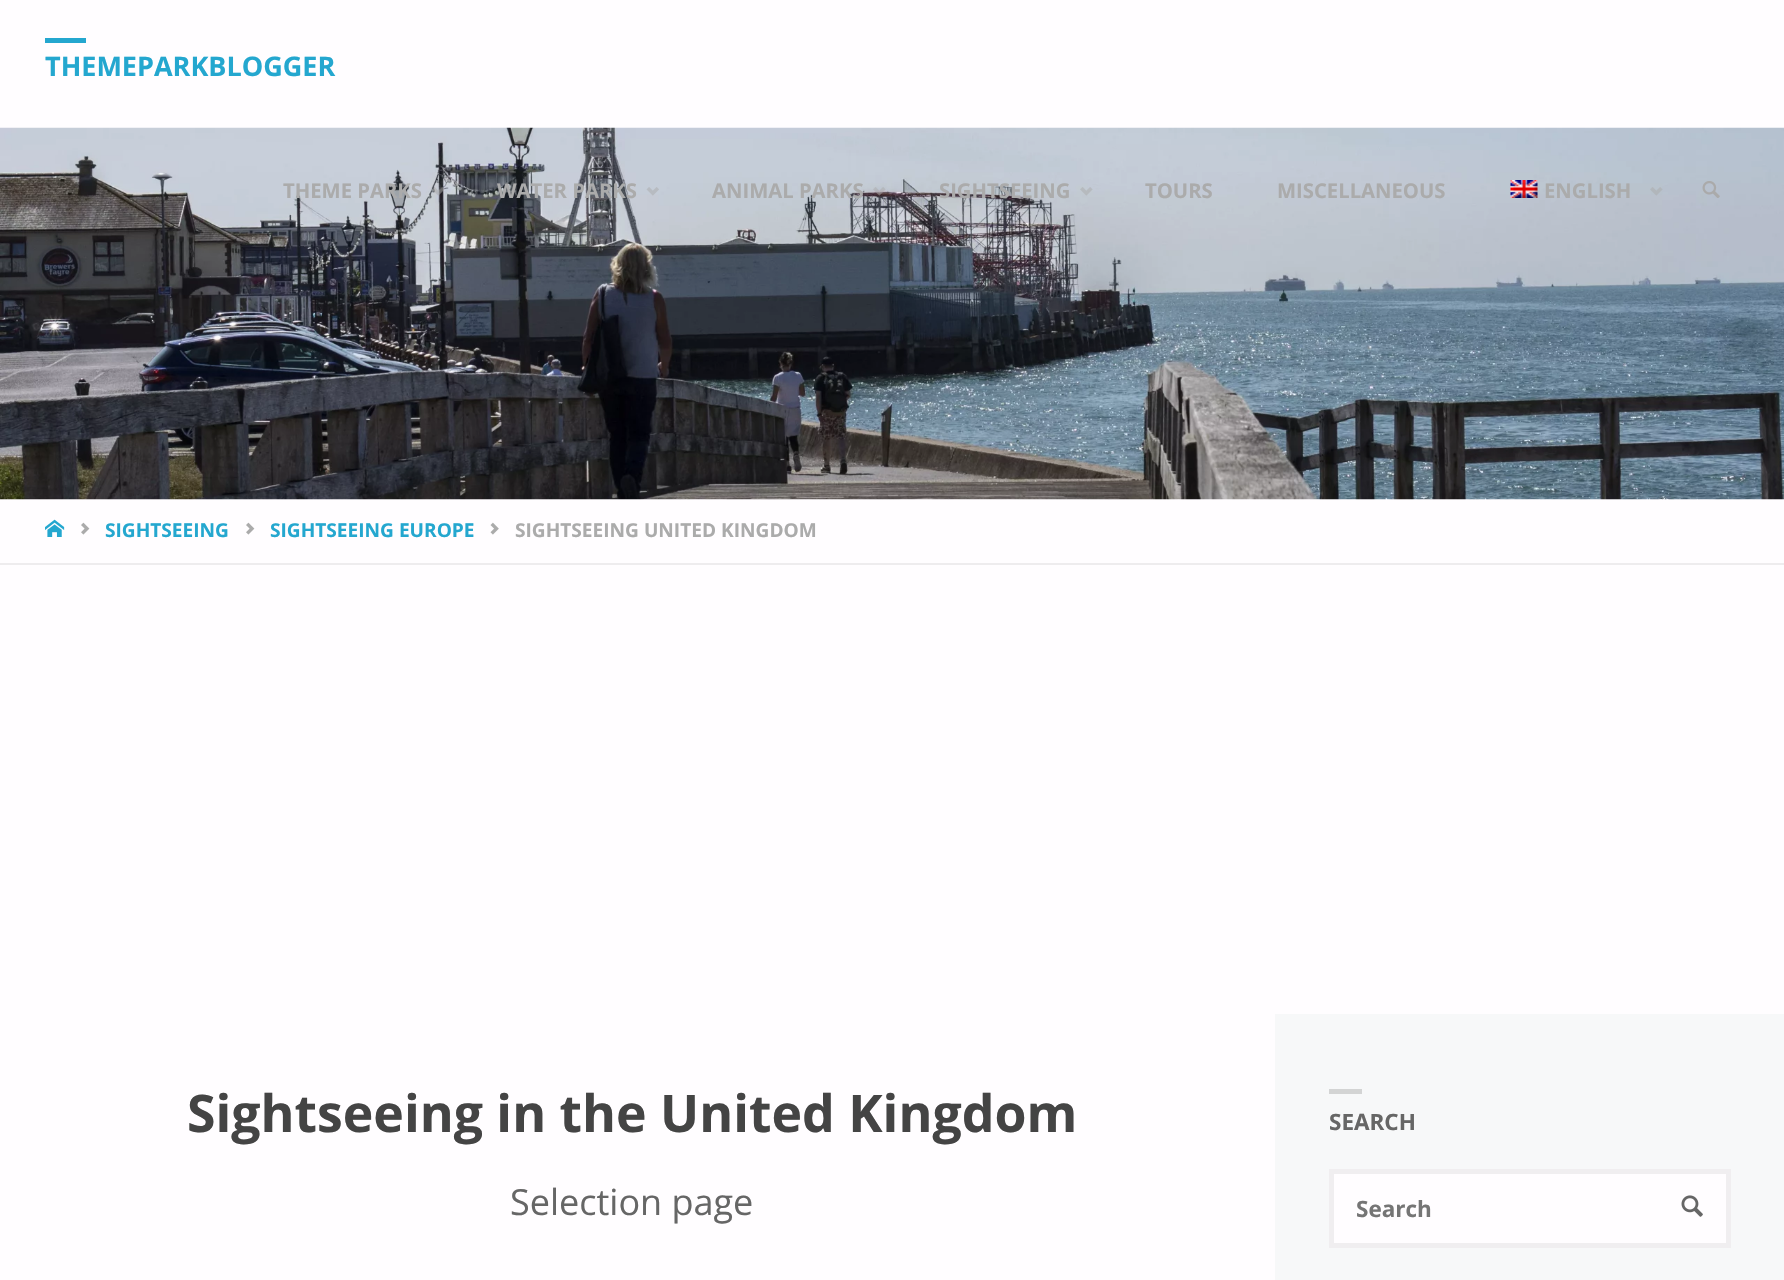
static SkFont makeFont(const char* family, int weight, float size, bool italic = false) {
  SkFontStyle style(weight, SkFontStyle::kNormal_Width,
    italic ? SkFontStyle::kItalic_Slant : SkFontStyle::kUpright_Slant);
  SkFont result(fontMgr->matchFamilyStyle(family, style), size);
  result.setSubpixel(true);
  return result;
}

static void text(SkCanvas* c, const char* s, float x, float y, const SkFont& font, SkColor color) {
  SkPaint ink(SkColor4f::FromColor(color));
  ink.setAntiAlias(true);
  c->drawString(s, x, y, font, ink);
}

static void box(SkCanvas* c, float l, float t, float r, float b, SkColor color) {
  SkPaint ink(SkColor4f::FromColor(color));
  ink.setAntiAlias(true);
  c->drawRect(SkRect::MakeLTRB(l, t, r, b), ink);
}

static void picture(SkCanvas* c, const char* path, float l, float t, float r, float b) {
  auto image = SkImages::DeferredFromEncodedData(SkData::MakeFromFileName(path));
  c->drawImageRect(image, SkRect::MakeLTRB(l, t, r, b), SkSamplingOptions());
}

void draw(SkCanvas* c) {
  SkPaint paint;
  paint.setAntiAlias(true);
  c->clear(0xfffffdff);
  box(c, 45, 38, 86, 43, 0xff24a7cf);
  SkFont face1 = makeFont("Open Sans", 700, 27);
  text(c, "THEMEPARKBLOGGER", 45, 76, face1, 0xff24a7cf);
  picture(c, "img_08.png", 0, 127, 1784, 500);
  SkFont face2 = makeFont("Open Sans", 700, 20.25f);
  text(c, "THEME PARKS", 283, 198, face2, 0xffababab);
  picture(c, "img_01.png", 432, 187, 445, 196);
  text(c, "WATER PARKS", 497, 198, face2, 0xffababab);
  picture(c, "img_02.png", 646, 187, 659, 196);
  text(c, "ANIMAL PARKS", 712, 198, face2, 0xffababab);
  picture(c, "img_03.png", 873, 187, 886, 196);
  text(c, "SIGHTSEEING", 939, 198, face2, 0xffababab);
  picture(c, "img_04.png", 1080, 187, 1093, 196);
  text(c, "TOURS", 1145, 198, face2, 0xffababab);
  text(c, "MISCELLANEOUS", 1277, 198, face2, 0xffababab);
  picture(c, "img_05.png", 1510, 180, 1538, 198);
  text(c, "ENGLISH", 1544, 198, face2, 0xffababab);
  picture(c, "img_06.png", 1650, 187, 1663, 196);
  picture(c, "img_07.png", 1702, 181, 1720, 198);
  box(c, 0, 563, 1784, 565, 0xffeeecee);
  picture(c, "img_09.png", 45, 519, 65, 537);
  picture(c, "img_10.png", 81, 522, 90, 535);
  SkFont face3 = makeFont("Open Sans", 700, 19.1f);
  text(c, "SIGHTSEEING", 105, 537, face3, 0xff24a7cf);
  picture(c, "img_10.png", 246, 522, 255, 535);
  text(c, "SIGHTSEEING EUROPE", 270, 537, face3, 0xff24a7cf);
  picture(c, "img_11.png", 490, 522, 499, 535);
  text(c, "SIGHTSEEING UNITED KINGDOM", 515, 537, face3, 0xffababab);
  SkFont face4 = makeFont("Open Sans", 700, 51.75f);
  text(c, "Sightseeing in the United Kingdom", 187, 1132, face4, 0xff444444);
  SkFont face5 = makeFont("Open Sans", 400, 36);
  text(c, "Selection page", 510, 1215, face5, 0xff666666);
  box(c, 1275, 1014, 1784, 1280, 0xfff7f8f9);
  box(c, 1329, 1089, 1362, 1094, 0xffd3d4d4);
  SkFont face6 = makeFont("Open Sans", 700, 22.5f);
  text(c, "SEARCH", 1329, 1130, face6, 0xff666666);
  paint.setColor(0xfffffdff);
  c->drawRect(SkRect::MakeLTRB(1331.5f, 1171.5f, 1728.5f, 1245.5f), paint);
  paint.setStyle(SkPaint::kStroke_Style);
  paint.setStrokeWidth(5);
  paint.setColor(0xfff0eef0);
  c->drawRect(SkRect::MakeLTRB(1331.5f, 1171.5f, 1728.5f, 1245.5f), paint);
  text(c, "Search", 1356, 1217, face6, 0xff757575);
  picture(c, "img_12.png", 1681, 1195, 1703, 1217);
}
